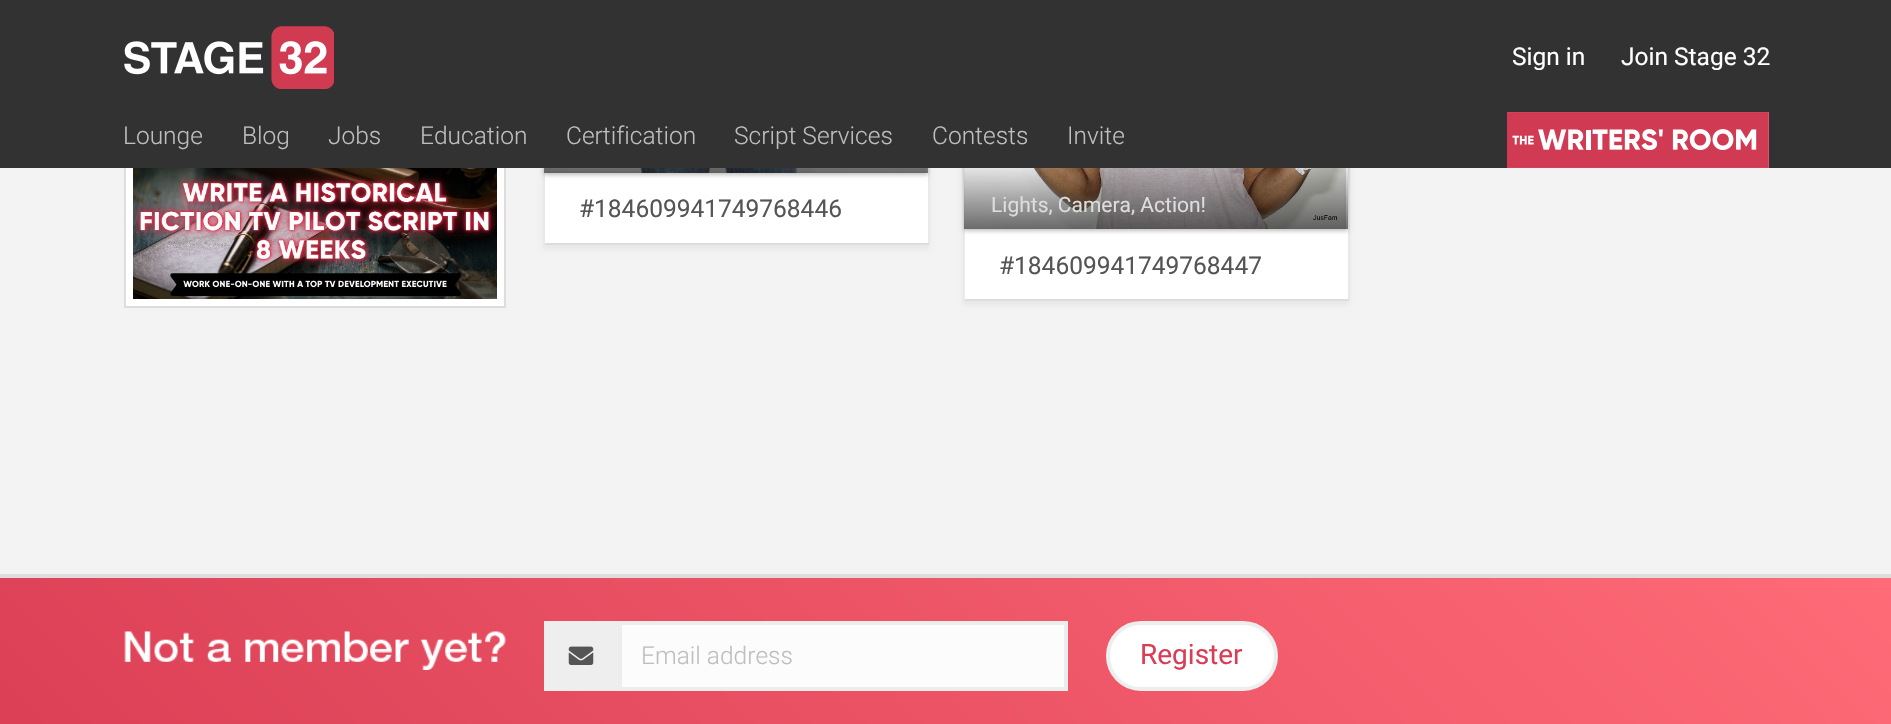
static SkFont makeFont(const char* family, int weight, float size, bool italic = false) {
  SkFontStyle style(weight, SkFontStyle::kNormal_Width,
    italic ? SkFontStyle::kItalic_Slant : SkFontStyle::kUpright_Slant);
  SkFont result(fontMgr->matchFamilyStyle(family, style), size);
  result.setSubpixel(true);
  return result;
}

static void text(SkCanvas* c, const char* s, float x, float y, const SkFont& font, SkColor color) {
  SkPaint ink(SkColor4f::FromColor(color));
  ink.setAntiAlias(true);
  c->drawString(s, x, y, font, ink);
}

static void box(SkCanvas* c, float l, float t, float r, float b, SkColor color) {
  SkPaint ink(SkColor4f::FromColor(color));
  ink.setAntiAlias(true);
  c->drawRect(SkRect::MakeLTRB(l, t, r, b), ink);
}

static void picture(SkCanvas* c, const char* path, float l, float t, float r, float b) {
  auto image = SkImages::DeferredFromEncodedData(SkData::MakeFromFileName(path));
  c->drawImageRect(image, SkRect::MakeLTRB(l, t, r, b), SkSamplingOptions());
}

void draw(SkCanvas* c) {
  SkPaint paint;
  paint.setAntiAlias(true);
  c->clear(0xfff3f3f3);
  box(c, 126, 168, 504, 306, 0xffffffff);
  paint.setStyle(SkPaint::kStroke_Style);
  paint.setStrokeWidth(2);
  paint.setColor(0xffdddddd);
  c->drawRect(SkRect::MakeLTRB(125, 87, 505, 307), paint);
  paint.setStyle(SkPaint::kFill_Style);
  paint.setColor(0x0d000000);
  paint.setMaskFilter(SkMaskFilter::MakeBlur(kNormal_SkBlurStyle, 2.5f));
  c->drawRect(SkRect::MakeLTRB(543, -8, 929, 249), paint);
  paint.setMaskFilter(nullptr);
  box(c, 545, 168, 928, 243, 0xffffffff);
  box(c, 928, 168, 930, 245, 0xffe9e9e9);
  box(c, 543, 243, 929, 245, 0xffdddddd);
  box(c, 543, 168, 545, 245, 0xffe9e9e9);
  c->save();
  c->clipPath(SkPathBuilder(SkPathFillType::kEvenOdd).moveTo(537, 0).lineTo(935, 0).lineTo(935, 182).lineTo(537, 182).close().moveTo(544, -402).lineTo(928, -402).lineTo(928, 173).lineTo(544, 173).close().detach(), true);
  paint.setColor(0x40000000);
  paint.setMaskFilter(SkMaskFilter::MakeBlur(kNormal_SkBlurStyle, 2));
  c->drawRect(SkRect::MakeLTRB(544, -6, 928, 175), paint);
  paint.setMaskFilter(nullptr);
  c->restore();
  paint.setColor(0x0d000000);
  paint.setMaskFilter(SkMaskFilter::MakeBlur(kNormal_SkBlurStyle, 2.5f));
  c->drawRect(SkRect::MakeLTRB(963, -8, 1349, 305), paint);
  paint.setMaskFilter(nullptr);
  box(c, 965, 168, 1348, 299, 0xffffffff);
  box(c, 1348, 168, 1350, 301, 0xffe9e9e9);
  box(c, 963, 299, 1349, 301, 0xffdddddd);
  box(c, 963, 168, 965, 301, 0xffe9e9e9);
  c->save();
  c->clipPath(SkPathBuilder(SkPathFillType::kEvenOdd).moveTo(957, 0).lineTo(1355, 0).lineTo(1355, 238).lineTo(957, 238).close().moveTo(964, -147).lineTo(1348, -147).lineTo(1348, 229).lineTo(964, 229).close().detach(), true);
  paint.setColor(0x40000000);
  paint.setMaskFilter(SkMaskFilter::MakeBlur(kNormal_SkBlurStyle, 2));
  c->drawRect(SkRect::MakeLTRB(964, -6, 1348, 231), paint);
  paint.setMaskFilter(nullptr);
  c->restore();
  box(c, 0, 0, 1891, 168, 0xff323232);
  picture(c, "img_01.png", 124, 26, 334, 89);
  SkFont face1 = makeFont("Roboto", 400, 24.5f);
  text(c, "Sign in", 1512, 65, face1, 0xffffffff);
  text(c, "Join Stage 32", 1621, 65, face1, 0xffffffff);
  SkFont face2 = makeFont("Roboto", 300, 24.5f);
  text(c, "Lounge", 123, 144, face2, 0xffbebebe);
  text(c, "Blog", 242, 144, face2, 0xffbebebe);
  text(c, "Jobs", 328, 144, face2, 0xffbebebe);
  text(c, "Education", 420, 144, face2, 0xffbebebe);
  text(c, "Certification", 566, 144, face2, 0xffbebebe);
  text(c, "Script Services", 734, 144, face2, 0xffbebebe);
  text(c, "Contests", 932, 144, face2, 0xffbebebe);
  text(c, "Invite", 1067, 144, face2, 0xffbebebe);
  picture(c, "img_02.png", 1507, 112, 1769, 168);
  picture(c, "img_03.png", 133, 168, 497, 299);
  picture(c, "img_04.png", 544, 168, 926, 173);
  {
    const SkColor colors[] = {0x00222222, 0xa6222222};
    const float stops[] = {0, 1};
    const SkPoint ends[] = {{736, 100}, {736, 173}};
    paint.setShader(SkGradientShader::MakeLinear(ends, colors, stops, 2, SkTileMode::kClamp));
    paint.setAlpha(255);
  }
  c->drawRect(SkRect::MakeLTRB(544, 168, 928, 173), paint);
  text(c, "#184609941749768446", 579, 217, face1, 0xff555555);
  picture(c, "img_05.png", 964, 168, 1346, 229);
  {
    const SkColor colors[] = {0x00222222, 0xa6222222};
    const float stops[] = {0, 1};
    const SkPoint ends[] = {{1156, 156}, {1156, 229}};
    paint.setShader(SkGradientShader::MakeLinear(ends, colors, stops, 2, SkTileMode::kClamp));
    paint.setAlpha(255);
  }
  c->drawRect(SkRect::MakeLTRB(964, 168, 1348, 229), paint);
  SkFont face3 = makeFont("Roboto", 400, 21);
  text(c, "Lights, Camera, Action!", 991, 212, face3, 0xffdddddd);
  text(c, "#184609941749768447", 999, 274, face1, 0xff555555);
  {
    const SkColor colors[] = {0xffda3e55, 0xffff6b77};
    const float stops[] = {0, 1};
    const SkPoint ends[] = {{418, 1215}, {1474, 159}};
    paint.setShader(SkGradientShader::MakeLinear(ends, colors, stops, 2, SkTileMode::kClamp));
    paint.setAlpha(255);
  }
  c->drawRect(SkRect::MakeLTRB(0, 578, 1891, 724), paint);
  box(c, 0, 574, 1891, 578, 0xffdddddd);
  picture(c, "img_06.png", 124, 631, 506, 670);
  box(c, 544, 621, 618, 691, 0xffeeeeee);
  picture(c, "img_07.png", 568, 646, 594, 665);
  paint.setShader(nullptr);
  paint.setColor(0xfffcfcfc);
  c->drawRect(SkRect::MakeLTRB(620, 623, 1066, 689), paint);
  paint.setStyle(SkPaint::kStroke_Style);
  paint.setStrokeWidth(4);
  paint.setColor(0xffededed);
  c->drawRect(SkRect::MakeLTRB(620, 623, 1066, 689), paint);
  text(c, "Email address", 641, 664, face2, 0xffbebebe);
  paint.setStyle(SkPaint::kFill_Style);
  paint.setColor(0xffffffff);
  c->drawRoundRect(SkRect::MakeLTRB(1108, 623, 1276, 689), 33, 33, paint);
  paint.setStyle(SkPaint::kStroke_Style);
  paint.setColor(0xffeeeeee);
  c->drawRoundRect(SkRect::MakeLTRB(1108, 623, 1276, 689), 33, 33, paint);
  SkFont face4 = makeFont("Roboto", 400, 28);
  text(c, "Register", 1140, 664, face4, 0xffda3e55);
}
